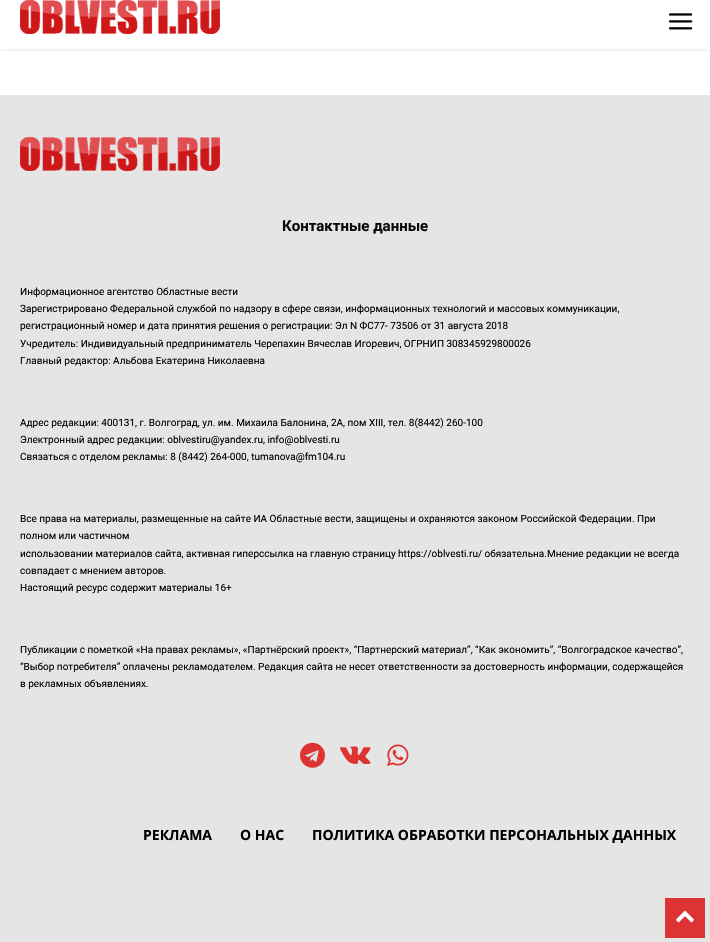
static SkFont makeFont(const char* family, int weight, float size, bool italic = false) {
  SkFontStyle style(weight, SkFontStyle::kNormal_Width,
    italic ? SkFontStyle::kItalic_Slant : SkFontStyle::kUpright_Slant);
  SkFont result(fontMgr->matchFamilyStyle(family, style), size);
  result.setSubpixel(true);
  return result;
}

static void text(SkCanvas* c, const char* s, float x, float y, const SkFont& font, SkColor color) {
  SkPaint ink(SkColor4f::FromColor(color));
  ink.setAntiAlias(true);
  c->drawString(s, x, y, font, ink);
}

static void box(SkCanvas* c, float l, float t, float r, float b, SkColor color) {
  SkPaint ink(SkColor4f::FromColor(color));
  ink.setAntiAlias(true);
  c->drawRect(SkRect::MakeLTRB(l, t, r, b), ink);
}

static void picture(SkCanvas* c, const char* path, float l, float t, float r, float b) {
  auto image = SkImages::DeferredFromEncodedData(SkData::MakeFromFileName(path));
  c->drawImageRect(image, SkRect::MakeLTRB(l, t, r, b), SkSamplingOptions());
}

void draw(SkCanvas* c) {
  SkPaint paint;
  paint.setAntiAlias(true);
  c->clear(0xffffffff);
  picture(c, "img_01.png", 20, 0, 220, 34);
  picture(c, "img_02.png", 669, 13, 693, 30);
  c->save();
  c->clipRect(SkRect::MakeLTRB(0, 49, 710, 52));
  paint.setColor(0x0f000000);
  paint.setMaskFilter(SkMaskFilter::MakeBlur(kNormal_SkBlurStyle, 2));
  c->drawRect(SkRect::MakeLTRB(0, 2, 710, 51), paint);
  paint.setMaskFilter(nullptr);
  c->restore();
  box(c, 0, 95, 710, 942, 0xffe5e5e5);
  picture(c, "img_03.png", 20, 137, 220, 171);
  SkFont face1 = makeFont("Roboto", 700, 15);
  text(c, "Контактные данные", 282, 231, face1, 0xff0a0a0a);
  SkFont face2 = makeFont("Roboto", 400, 10);
  text(c, "Информационное агентство Областные вести", 20, 295, face2, 0xff000000);
  text(c, "Зарегистрировано Федеральной службой по надзору в сфере связи, информационных технологий и массовых коммуникации,", 20, 312, face2, 0xff000000);
  text(c, "регистрационный номер и дата принятия решения о регистрации: Эл N ФС77- 73506 от 31 августа 2018", 20, 329, face2, 0xff000000);
  text(c, "Учредитель: Индивидуальный предприниматель Черепахин Вячеслав Игоревич, ОГРНИП 308345929800026", 20, 347, face2, 0xff000000);
  text(c, "Главный редактор: Альбова Екатерина Николаевна", 20, 364, face2, 0xff000000);
  text(c, "Адрес редакции: 400131, г. Волгоград, ул. им. Михаила Балонина, 2А, пом XIII, тел. 8(8442) 260-100", 20, 426, face2, 0xff000000);
  text(c, "Электронный адрес редакции: oblvestiru@yandex.ru, info@oblvesti.ru", 20, 443, face2, 0xff000000);
  text(c, "Связаться с отделом рекламы: 8 (8442) 264-000, tumanova@fm104.ru", 20, 460, face2, 0xff000000);
  text(c, "Все права на материалы, размещенные на сайте ИА Областные вести, защищены и охраняются законом Российской Федерации. При", 20, 522, face2, 0xff000000);
  text(c, "полном или частичном", 20, 539, face2, 0xff000000);
  text(c, "использовании материалов сайта, активная гиперссылка на главную страницу https://oblvesti.ru/ обязательна.Мнение редакции не всегда", 20, 557, face2, 0xff000000);
  text(c, "совпадает с мнением авторов.", 20, 574, face2, 0xff000000);
  text(c, "Настоящий ресурс содержит материалы 16+", 20, 591, face2, 0xff000000);
  text(c, "Публикации с пометкой «На правах рекламы», «Партнёрский проект», “Партнерский материал”, “Как экономить”, “Волгоградское качество”,", 20, 653, face2, 0xff000000);
  text(c, "“Выбор потребителя” оплачены рекламодателем. Редакция сайта не несет ответственности за достоверность информации, содержащейся", 20, 670, face2, 0xff000000);
  text(c, "в рекламных объявлениях.", 20, 687, face2, 0xff000000);
  picture(c, "img_04.png", 300, 742, 325, 768);
  picture(c, "img_05.png", 340, 746, 371, 764);
  picture(c, "img_06.png", 387, 744, 409, 766);
  SkFont face3 = makeFont("Open Sans", 700, 14);
  text(c, "РЕКЛАМА", 143, 840, face3, 0xff000000);
  text(c, "О НАС", 240, 840, face3, 0xff000000);
  text(c, "ПОЛИТИКА ОБРАБОТКИ ПЕРСОНАЛЬНЫХ ДАННЫХ", 312, 840, face3, 0xff000000);
  box(c, 665, 898, 705, 938, 0xffdd3333);
  picture(c, "img_07.png", 676, 910, 694, 923);
}
